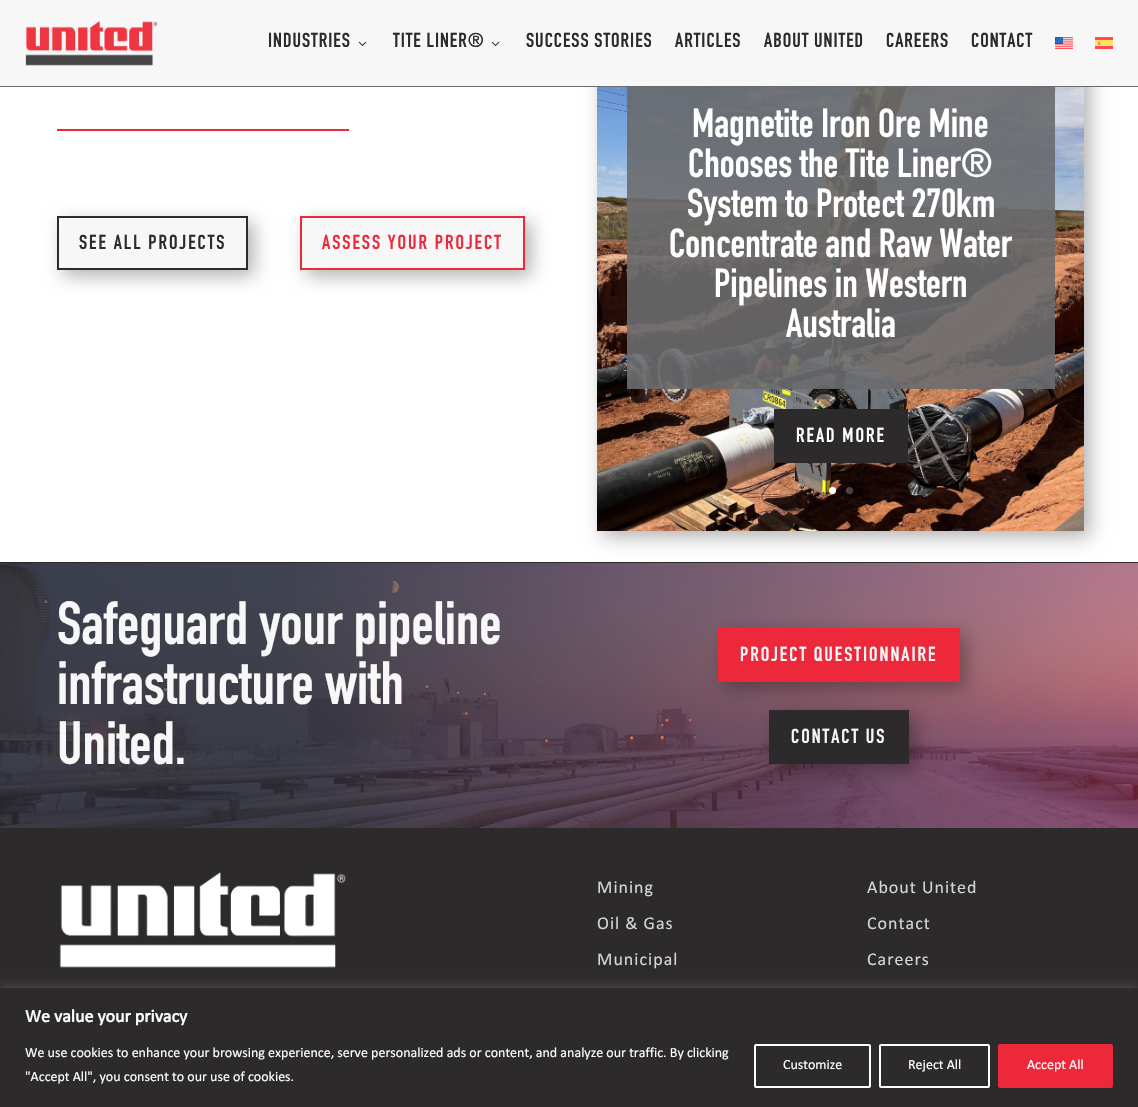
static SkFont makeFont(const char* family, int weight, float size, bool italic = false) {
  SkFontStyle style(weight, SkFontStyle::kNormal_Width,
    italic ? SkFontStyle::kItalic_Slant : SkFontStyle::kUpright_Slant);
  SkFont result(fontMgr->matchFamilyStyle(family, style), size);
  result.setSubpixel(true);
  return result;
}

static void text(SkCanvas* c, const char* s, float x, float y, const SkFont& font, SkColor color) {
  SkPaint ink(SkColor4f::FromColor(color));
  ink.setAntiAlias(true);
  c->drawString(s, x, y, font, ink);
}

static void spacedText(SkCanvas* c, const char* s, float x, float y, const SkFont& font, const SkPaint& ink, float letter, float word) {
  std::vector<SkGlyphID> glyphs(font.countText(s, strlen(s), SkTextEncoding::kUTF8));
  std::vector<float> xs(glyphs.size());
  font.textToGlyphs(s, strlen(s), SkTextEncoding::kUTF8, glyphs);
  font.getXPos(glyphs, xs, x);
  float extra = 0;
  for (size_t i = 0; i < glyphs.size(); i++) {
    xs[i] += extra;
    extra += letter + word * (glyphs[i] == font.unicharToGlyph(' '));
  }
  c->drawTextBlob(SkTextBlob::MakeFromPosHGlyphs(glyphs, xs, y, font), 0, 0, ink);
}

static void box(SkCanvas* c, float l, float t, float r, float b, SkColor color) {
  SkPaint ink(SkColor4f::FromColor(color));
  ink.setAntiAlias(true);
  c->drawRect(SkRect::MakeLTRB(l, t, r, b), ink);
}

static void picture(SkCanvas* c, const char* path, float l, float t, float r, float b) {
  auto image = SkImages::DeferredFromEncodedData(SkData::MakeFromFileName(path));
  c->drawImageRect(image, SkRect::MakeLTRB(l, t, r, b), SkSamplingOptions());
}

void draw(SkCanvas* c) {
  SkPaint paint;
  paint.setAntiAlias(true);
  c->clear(0xffffffff);
  box(c, 0, 562, 1138, 563, 0xff2d2a2b);
  paint.setColor(0x4d000000);
  paint.setMaskFilter(SkMaskFilter::MakeBlur(kNormal_SkBlurStyle, 9));
  c->drawRect(SkRect::MakeLTRB(603, 1, 1090, 537), paint);
  paint.setMaskFilter(nullptr);
  box(c, 0, 86, 1138, 87, 0xff696a6d);
  box(c, 0, 0, 1138, 86, 0xfff7f7f7);
  picture(c, "img_01.png", 25, 21, 158, 66);
  SkFont face1 = makeFont("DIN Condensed", 700, 20);
  paint.setColor(0xff2d2a2b);
  spacedText(c, "INDUSTRIES", 268, 47, face1, paint, 1, 0);
  picture(c, "img_02.png", 358, 41, 367, 46);
  spacedText(c, "TITE LINER®", 393, 47, face1, paint, 1, 0);
  picture(c, "img_02.png", 491, 41, 500, 46);
  spacedText(c, "SUCCESS STORIES", 526, 47, face1, paint, 1, 0);
  spacedText(c, "ARTICLES", 675, 47, face1, paint, 1, 0);
  spacedText(c, "ABOUT UNITED", 764, 47, face1, paint, 1, 0);
  spacedText(c, "CAREERS", 886, 47, face1, paint, 1, 0);
  spacedText(c, "CONTACT", 971, 47, face1, paint, 1, 0);
  picture(c, "img_03.png", 1055, 37, 1073, 49);
  picture(c, "img_04.png", 1095, 37, 1113, 49);
  box(c, 57, 129, 349, 131, 0xffee283b);
  paint.setColor(0x4d000000);
  paint.setMaskFilter(SkMaskFilter::MakeBlur(kNormal_SkBlurStyle, 9));
  c->drawRect(SkRect::MakeLTRB(63, 222, 254, 276), paint);
  paint.setMaskFilter(nullptr);
  paint.setColor(0xfff7f7f7);
  c->drawRect(SkRect::MakeLTRB(58, 217, 247, 269), paint);
  paint.setStyle(SkPaint::kStroke_Style);
  paint.setStrokeWidth(2);
  paint.setColor(0xff2d2a2b);
  c->drawRect(SkRect::MakeLTRB(58, 217, 247, 269), paint);
  paint.setStyle(SkPaint::kFill_Style);
  spacedText(c, "SEE ALL PROJECTS", 79, 249, face1, paint, 2, 0);
  paint.setColor(0x4d000000);
  paint.setMaskFilter(SkMaskFilter::MakeBlur(kNormal_SkBlurStyle, 9));
  c->drawRect(SkRect::MakeLTRB(306, 222, 531, 276), paint);
  paint.setMaskFilter(nullptr);
  paint.setColor(0xfff7f7f7);
  c->drawRect(SkRect::MakeLTRB(301, 217, 524, 269), paint);
  paint.setStyle(SkPaint::kStroke_Style);
  paint.setColor(0xffee283b);
  c->drawRect(SkRect::MakeLTRB(301, 217, 524, 269), paint);
  paint.setStyle(SkPaint::kFill_Style);
  spacedText(c, "ASSESS YOUR PROJECT", 322, 249, face1, paint, 2, 0);
  picture(c, "img_05.png", 597, 87, 1084, 531);
  box(c, 627, 87, 1055, 389, 0xe6696a6d);
  SkFont face2 = makeFont("DIN Condensed", 700, 40);
  text(c, "Magnetite Iron Ore Mine", 692, 137, face2, 0xffffffff);
  text(c, "Chooses the Tite Liner®", 688, 177, face2, 0xffffffff);
  text(c, "System to Protect 270km", 687, 217, face2, 0xffffffff);
  text(c, "Concentrate and Raw Water", 669, 257, face2, 0xffffffff);
  text(c, "Pipelines in Western", 714, 297, face2, 0xffffffff);
  text(c, "Australia", 786, 337, face2, 0xffffffff);
  box(c, 774, 409, 908, 463, 0xff2d2a2b);
  paint.setColor(0xffffffff);
  spacedText(c, "READ MORE", 796, 442, face1, paint, 2, 0);
  c->drawCircle(832.5f, 490.5f, 3.5f, paint);
  paint.setColor(0x40ffffff);
  c->drawCircle(849.5f, 490.5f, 3.5f, paint);
  picture(c, "img_06.png", 0, 563, 1138, 828);
  SkFont face3 = makeFont("DIN Condensed", 700, 60);
  text(c, "Safeguard your pipeline", 57, 644, face3, 0xfff7f7f7);
  text(c, "infrastructure with", 57, 704, face3, 0xfff7f7f7);
  text(c, "United.", 57, 764, face3, 0xfff7f7f7);
  paint.setColor(0x4d000000);
  paint.setMaskFilter(SkMaskFilter::MakeBlur(kNormal_SkBlurStyle, 9));
  c->drawRect(SkRect::MakeLTRB(724, 634, 966, 688), paint);
  paint.setMaskFilter(nullptr);
  box(c, 718, 628, 960, 682, 0xffee283b);
  paint.setColor(0xfff7f7f7);
  spacedText(c, "PROJECT QUESTIONNAIRE", 740, 661, face1, paint, 2, 0);
  paint.setColor(0x4d000000);
  paint.setMaskFilter(SkMaskFilter::MakeBlur(kNormal_SkBlurStyle, 9));
  c->drawRect(SkRect::MakeLTRB(775, 716, 915, 770), paint);
  paint.setMaskFilter(nullptr);
  box(c, 769, 710, 909, 764, 0xff2d2a2b);
  paint.setColor(0xfff7f7f7);
  spacedText(c, "CONTACT US", 791, 743, face1, paint, 2, 0);
  box(c, 0, 828, 1138, 988, 0xff2d2a2b);
  picture(c, "img_07.png", 59, 872, 346, 968);
  SkFont face4 = makeFont("Calibri", 400, 18);
  paint.setColor(0xffd6d6d6);
  spacedText(c, "Mining", 597, 893, face4, paint, 1, 0);
  spacedText(c, "Oil & Gas", 597, 929, face4, paint, 1, 0);
  spacedText(c, "Municipal", 597, 965, face4, paint, 1, 0);
  spacedText(c, "About United", 867, 893, face4, paint, 1, 0);
  spacedText(c, "Contact", 867, 929, face4, paint, 1, 0);
  spacedText(c, "Careers", 867, 965, face4, paint, 1, 0);
  paint.setColor(0x4dacabab);
  paint.setMaskFilter(SkMaskFilter::MakeBlur(kNormal_SkBlurStyle, 5));
  c->drawRect(SkRect::MakeLTRB(0, 987, 1138, 1106), paint);
  paint.setMaskFilter(nullptr);
  box(c, 0, 988, 1138, 1107, 0xff2d2a2b);
  SkFont face5 = makeFont("Calibri", 700, 18);
  text(c, "We value your privacy", 25, 1022, face5, 0xffffffff);
  SkFont face6 = makeFont("Calibri", 400, 14);
  text(c, "We use cookies to enhance your browsing experience, serve personalized ads or content, and analyze our traffic. By clicking", 25, 1057, face6, 0xffffffff);
  text(c, "\"Accept All\", you consent to our use of cookies.", 25, 1081, face6, 0xffffffff);
  paint.setStyle(SkPaint::kStroke_Style);
  paint.setColor(0xffffffff);
  c->drawRoundRect(SkRect::MakeLTRB(755, 1045, 870, 1087), 1, 1, paint);
  text(c, "Customize", 783, 1069, face6, 0xffffffff);
  c->drawRoundRect(SkRect::MakeLTRB(880, 1045, 989, 1087), 1, 1, paint);
  text(c, "Reject All", 908, 1069, face6, 0xffffffff);
  paint.setStyle(SkPaint::kFill_Style);
  paint.setColor(0xffee283b);
  c->drawRoundRect(SkRect::MakeLTRB(999, 1045, 1112, 1087), 1, 1, paint);
  paint.setStyle(SkPaint::kStroke_Style);
  c->drawRoundRect(SkRect::MakeLTRB(999, 1045, 1112, 1087), 1, 1, paint);
  text(c, "Accept All", 1027, 1069, face6, 0xffffffff);
}
